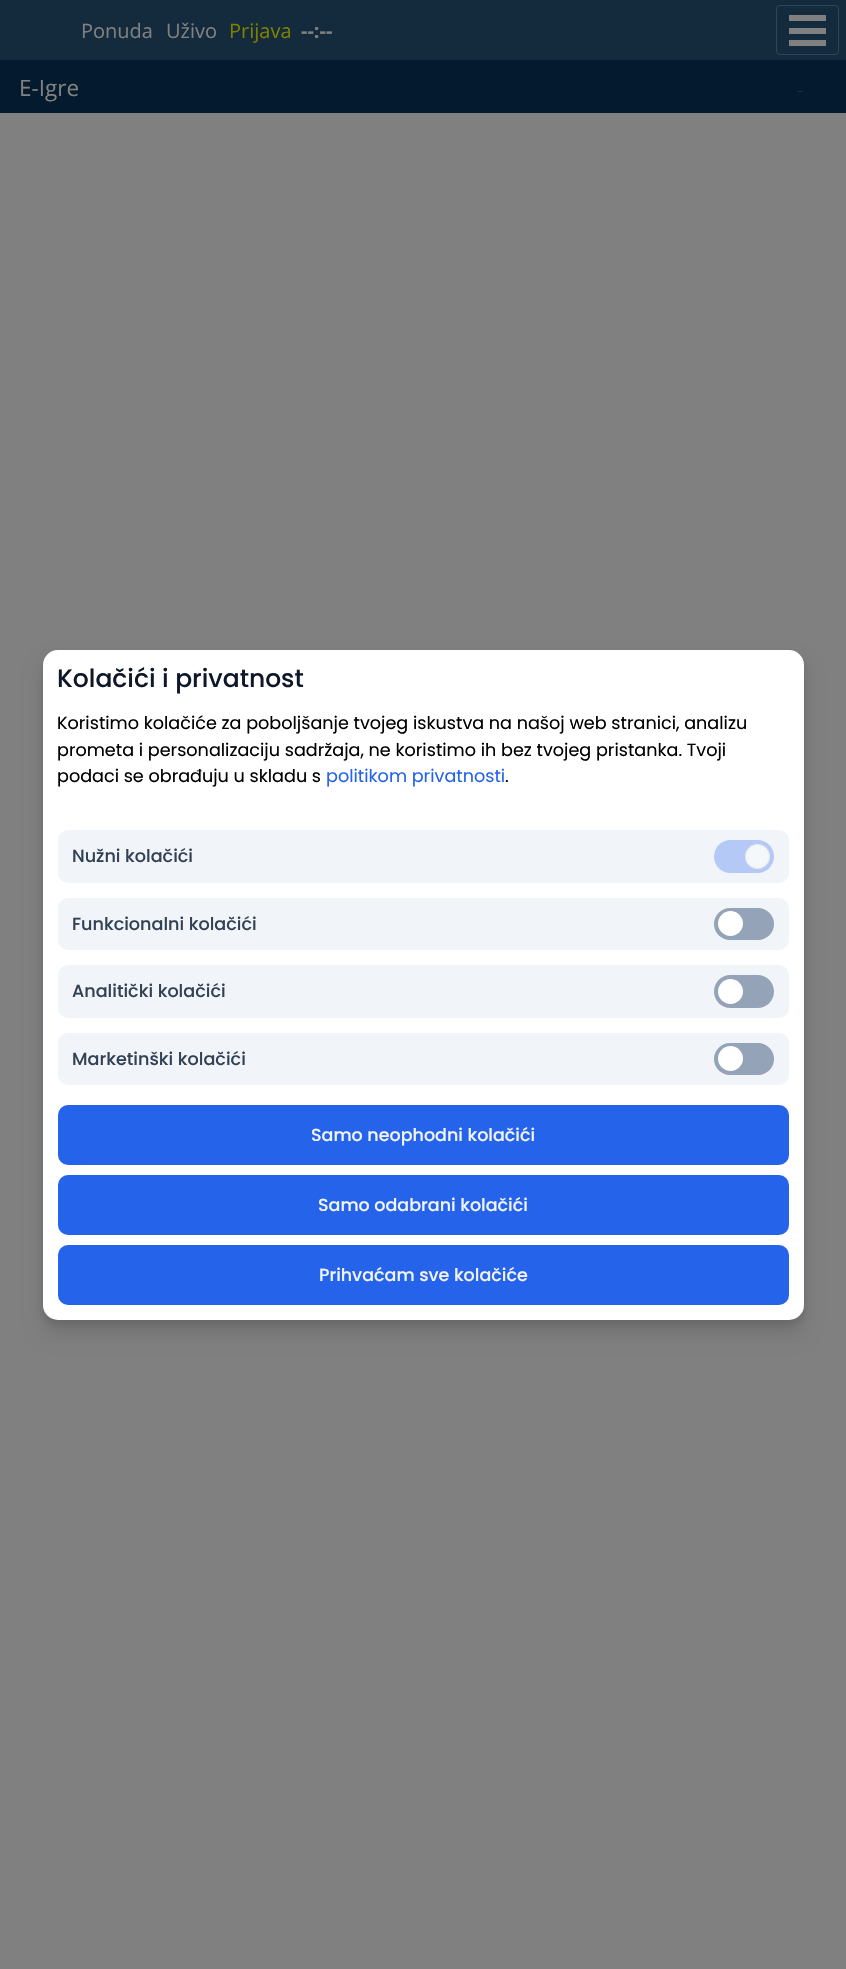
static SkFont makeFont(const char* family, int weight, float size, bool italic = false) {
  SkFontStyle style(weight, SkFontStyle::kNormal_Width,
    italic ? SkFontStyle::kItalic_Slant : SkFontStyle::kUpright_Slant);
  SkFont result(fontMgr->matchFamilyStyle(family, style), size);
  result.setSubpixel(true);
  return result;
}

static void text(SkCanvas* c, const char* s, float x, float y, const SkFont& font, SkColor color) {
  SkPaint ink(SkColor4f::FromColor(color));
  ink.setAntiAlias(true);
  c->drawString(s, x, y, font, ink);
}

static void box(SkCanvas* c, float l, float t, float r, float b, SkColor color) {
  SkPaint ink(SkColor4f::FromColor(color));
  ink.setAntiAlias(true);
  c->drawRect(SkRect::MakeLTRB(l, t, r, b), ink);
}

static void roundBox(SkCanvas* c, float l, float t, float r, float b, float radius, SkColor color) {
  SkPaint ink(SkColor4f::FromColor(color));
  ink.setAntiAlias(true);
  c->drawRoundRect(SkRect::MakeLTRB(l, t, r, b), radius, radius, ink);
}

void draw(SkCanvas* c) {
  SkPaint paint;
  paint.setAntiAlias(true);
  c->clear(0xff041a2e);
  box(c, 0, 0, 846, 60, 0xff142a3d);
  SkFont face1 = makeFont("Open Sans", 400, 20);
  text(c, "Ponuda", 81, 38, face1, 0xff808080);
  text(c, "Uživo", 166, 38, face1, 0xff808080);
  text(c, "Prijava", 229, 38, face1, 0xff7f7f00);
  SkFont face2 = makeFont("Open Sans", 700, 20);
  text(c, "--:--", 301, 38, face2, 0xff808080);
  paint.setStyle(SkPaint::kStroke_Style);
  paint.setStrokeWidth(1);
  paint.setColor(0xff344451);
  c->drawRoundRect(SkRect::MakeLTRB(776.5f, 5.5f, 838.5f, 54.5f), 3.5f, 3.5f, paint);
  box(c, 789, 15, 826, 21, 0xff808080);
  box(c, 789, 28, 826, 34, 0xff808080);
  box(c, 789, 40, 826, 46, 0xff808080);
  SkFont face3 = makeFont("Open Sans", 400, 22.5f);
  text(c, "E-Igre", 19, 96, face3, 0xff808080);
  box(c, 798, 91, 803, 92, 0xff12365d);
  box(c, 0, 113, 846, 1969, 0xff808080);
  paint.setStyle(SkPaint::kFill_Style);
  paint.setColor(0x1a000000);
  paint.setMaskFilter(SkMaskFilter::MakeBlur(kNormal_SkBlurStyle, 4));
  c->drawRoundRect(SkRect::MakeLTRB(43, 655, 804, 1325), 15, 15, paint);
  paint.setMaskFilter(nullptr);
  paint.setMaskFilter(SkMaskFilter::MakeBlur(kNormal_SkBlurStyle, 9.5f));
  c->drawRoundRect(SkRect::MakeLTRB(43, 663, 804, 1333), 15, 15, paint);
  paint.setMaskFilter(nullptr);
  roundBox(c, 43, 650, 804, 1320, 15, 0xffffffff);
  SkFont face4 = makeFont("Poppins", 500, 25);
  text(c, "Kolačići i privatnost", 57, 687, face4, 0xff0f172a);
  SkFont face5 = makeFont("Poppins", 400, 17.6f);
  text(c, "Koristimo kolačiće za poboljšanje tvojeg iskustva na našoj web stranici, analizu", 57, 729, face5, 0xff000000);
  text(c, "prometa i personalizaciju sadržaja, ne koristimo ih bez tvojeg pristanka. Tvoji", 57, 756, face5, 0xff000000);
  text(c, "podaci se obrađuju u skladu s", 57, 782, face5, 0xff000000);
  text(c, "politikom privatnosti", 326, 782, face5, 0xff2563eb);
  text(c, ".", 505, 782, face5, 0xff000000);
  roundBox(c, 58, 830, 789, 883, 10, 0xfff1f5f9);
  SkFont face6 = makeFont("Poppins", 500, 17.6f);
  text(c, "Nužni kolačići", 72, 862, face6, 0xff334155);
  roundBox(c, 714, 840, 774, 873, 16.5f, 0xffb4c9f5);
  paint.setColor(0xfff5f8fb);
  c->drawCircle(757.5f, 856.5f, 12.5f, paint);
  paint.setStyle(SkPaint::kStroke_Style);
  paint.setColor(0x66cacdd0);
  c->drawCircle(757.5f, 856.5f, 12, paint);
  roundBox(c, 58, 898, 789, 950, 10, 0xfff1f5f9);
  text(c, "Funkcionalni kolačići", 72, 930, face6, 0xff334155);
  roundBox(c, 714, 908, 774, 940, 16, 0xff94a3b8);
  paint.setStyle(SkPaint::kFill_Style);
  paint.setColor(0xffffffff);
  c->drawCircle(730.5f, 923.5f, 12.5f, paint);
  roundBox(c, 58, 965, 789, 1018, 10, 0xfff1f5f9);
  text(c, "Analitički kolačići", 72, 997, face6, 0xff334155);
  roundBox(c, 714, 975, 774, 1008, 16.5f, 0xff94a3b8);
  c->drawCircle(730.5f, 991.5f, 12.5f, paint);
  roundBox(c, 58, 1033, 789, 1085, 10, 0xfff1f5f9);
  text(c, "Marketinški kolačići", 72, 1065, face6, 0xff334155);
  roundBox(c, 714, 1043, 774, 1075, 16, 0xff94a3b8);
  c->drawCircle(730.5f, 1058.5f, 12.5f, paint);
  roundBox(c, 58, 1105, 789, 1165, 10, 0xff2563eb);
  SkFont face7 = makeFont("Poppins", 500, 17.5f);
  text(c, "Samo neophodni kolačići", 311, 1141, face7, 0xfff1f5f9);
  roundBox(c, 58, 1175, 789, 1235, 10, 0xff2563eb);
  text(c, "Samo odabrani kolačići", 318, 1211, face7, 0xfff1f5f9);
  roundBox(c, 58, 1245, 789, 1305, 10, 0xff2563eb);
  text(c, "Prihvaćam sve kolačiće", 319, 1281, face7, 0xfff1f5f9);
}
